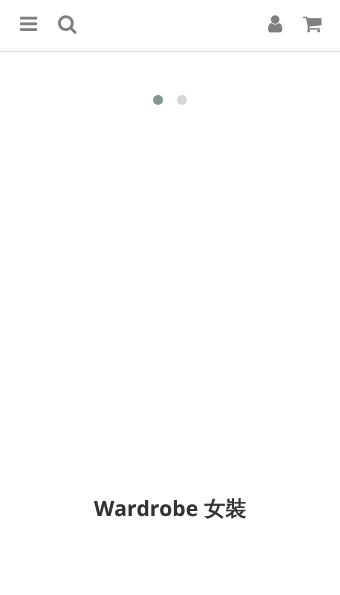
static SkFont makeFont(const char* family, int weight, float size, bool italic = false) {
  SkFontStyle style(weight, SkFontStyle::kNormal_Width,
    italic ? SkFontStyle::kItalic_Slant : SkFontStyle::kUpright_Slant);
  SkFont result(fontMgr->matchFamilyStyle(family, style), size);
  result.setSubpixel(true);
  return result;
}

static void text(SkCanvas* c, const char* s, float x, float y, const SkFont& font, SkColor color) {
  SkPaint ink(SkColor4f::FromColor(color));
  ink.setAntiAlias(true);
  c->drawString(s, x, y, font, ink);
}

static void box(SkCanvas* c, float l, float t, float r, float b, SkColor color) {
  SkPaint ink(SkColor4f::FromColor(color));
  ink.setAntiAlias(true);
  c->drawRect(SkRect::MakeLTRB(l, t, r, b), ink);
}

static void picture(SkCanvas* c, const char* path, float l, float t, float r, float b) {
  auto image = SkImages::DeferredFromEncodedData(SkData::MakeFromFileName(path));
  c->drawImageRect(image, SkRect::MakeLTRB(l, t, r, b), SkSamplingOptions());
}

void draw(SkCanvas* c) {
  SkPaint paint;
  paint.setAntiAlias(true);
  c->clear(0xffffffff);
  box(c, 0, 51, 340, 52, 0xffdddddd);
  picture(c, "img_01.png", 20, 16, 38, 31);
  picture(c, "img_02.png", 58, 15, 77, 34);
  picture(c, "img_03.png", 268, 15, 283, 33);
  picture(c, "img_04.png", 303, 16, 322, 33);
  paint.setColor(0xff869791);
  c->drawCircle(158, 100, 5, paint);
  paint.setColor(0xffd6d6d6);
  c->drawCircle(182, 100, 5, paint);
  SkFont face1 = makeFont("Open Sans", 700, 21);
  text(c, "Wardrobe", 94, 516, face1, 0xff333333);
  SkFont face2 = makeFont("WenQuanYi Zen Hei", 700, 21);
  text(c, "女裝", 204, 516, face2, 0xff333333);
}
